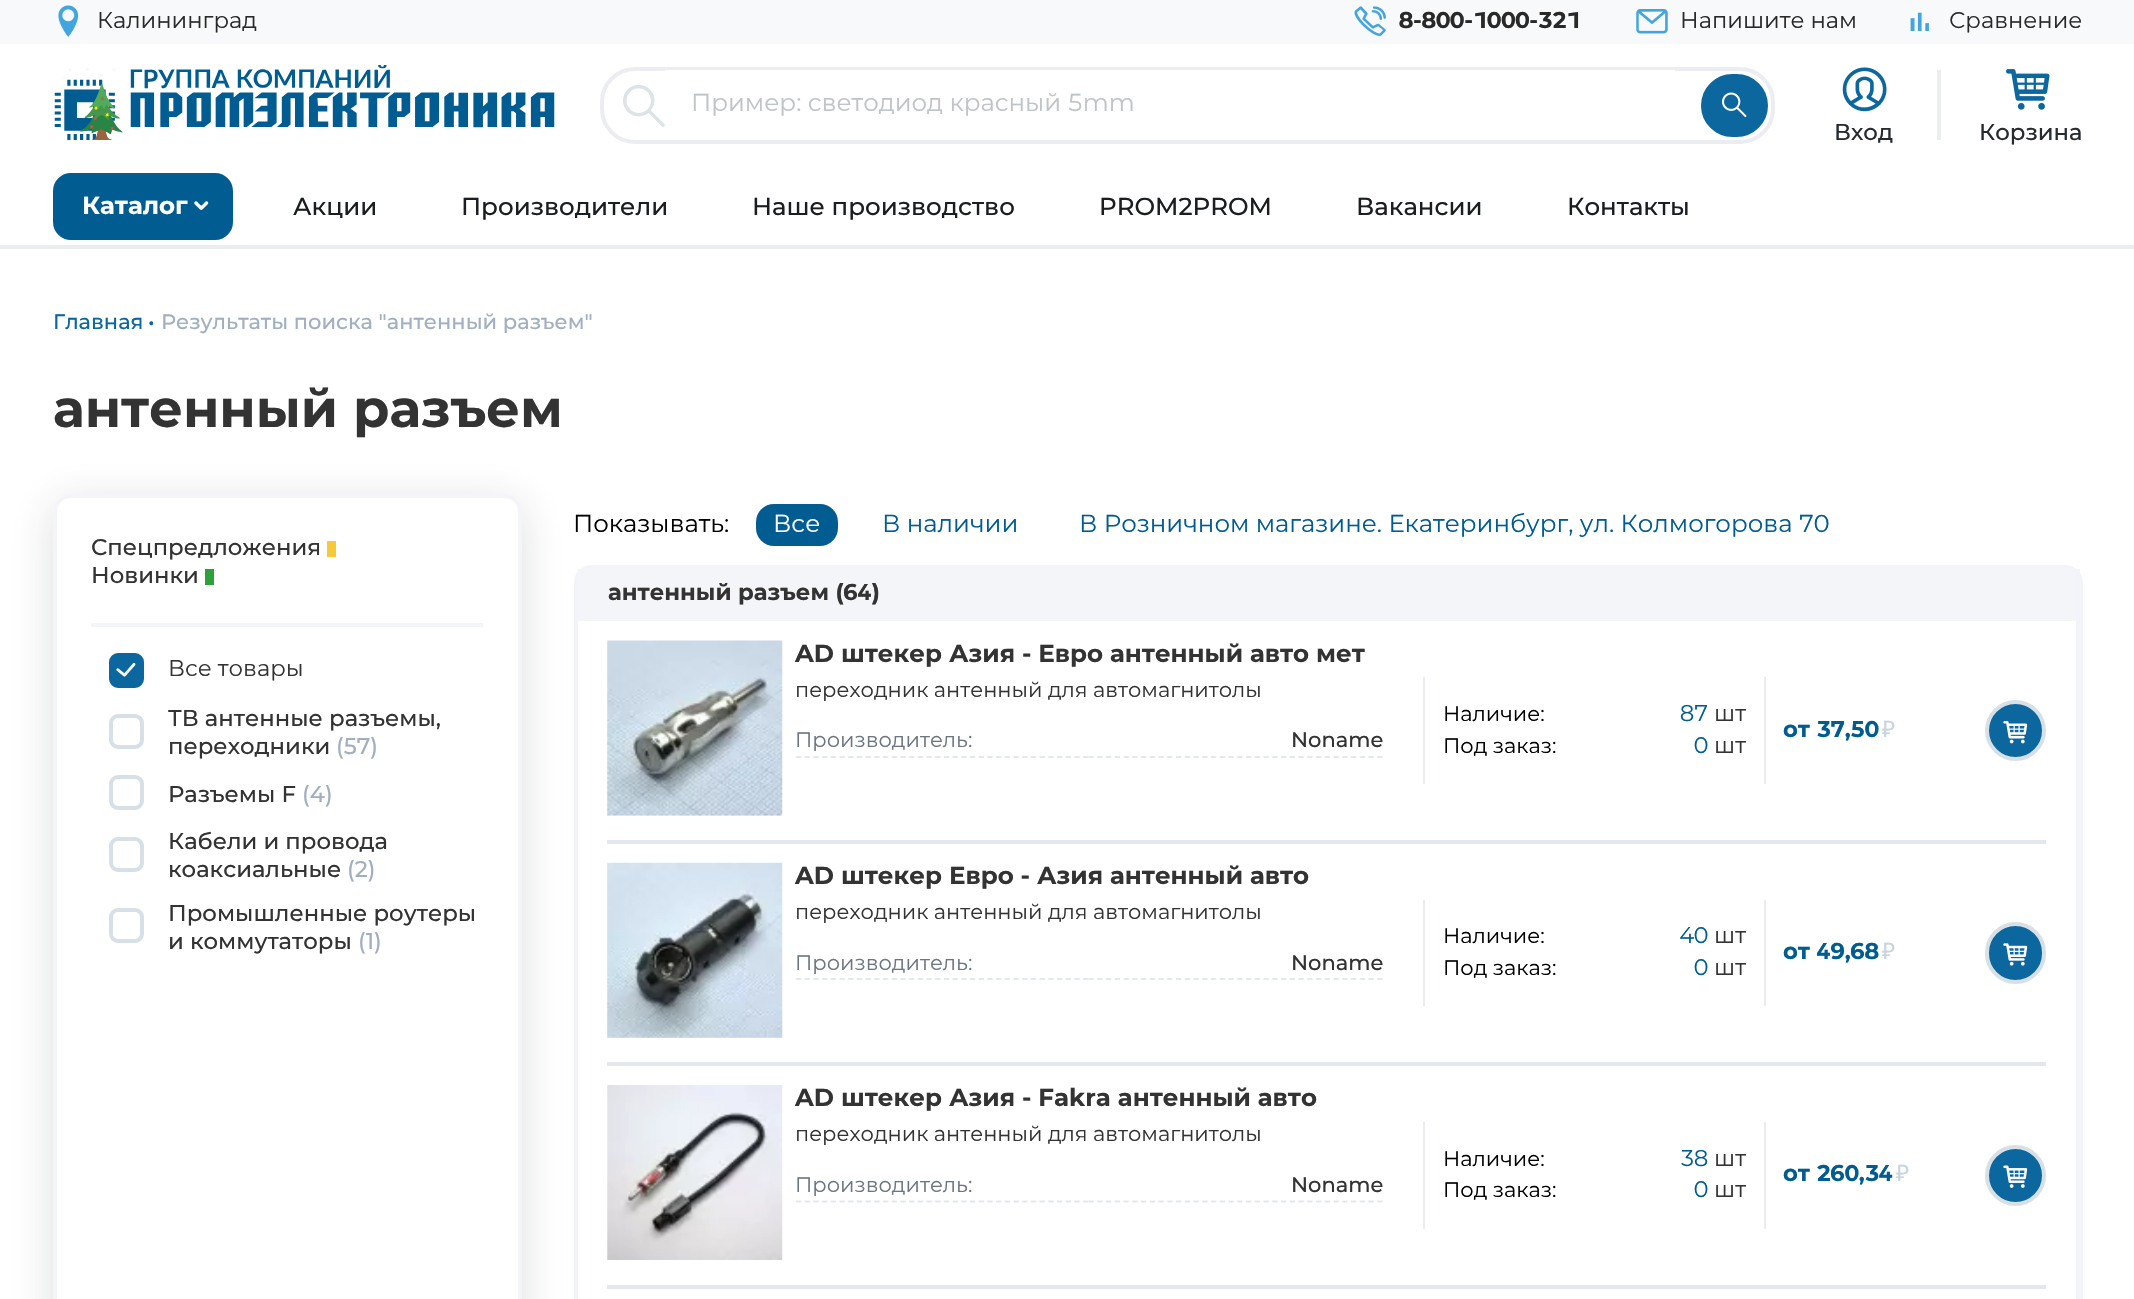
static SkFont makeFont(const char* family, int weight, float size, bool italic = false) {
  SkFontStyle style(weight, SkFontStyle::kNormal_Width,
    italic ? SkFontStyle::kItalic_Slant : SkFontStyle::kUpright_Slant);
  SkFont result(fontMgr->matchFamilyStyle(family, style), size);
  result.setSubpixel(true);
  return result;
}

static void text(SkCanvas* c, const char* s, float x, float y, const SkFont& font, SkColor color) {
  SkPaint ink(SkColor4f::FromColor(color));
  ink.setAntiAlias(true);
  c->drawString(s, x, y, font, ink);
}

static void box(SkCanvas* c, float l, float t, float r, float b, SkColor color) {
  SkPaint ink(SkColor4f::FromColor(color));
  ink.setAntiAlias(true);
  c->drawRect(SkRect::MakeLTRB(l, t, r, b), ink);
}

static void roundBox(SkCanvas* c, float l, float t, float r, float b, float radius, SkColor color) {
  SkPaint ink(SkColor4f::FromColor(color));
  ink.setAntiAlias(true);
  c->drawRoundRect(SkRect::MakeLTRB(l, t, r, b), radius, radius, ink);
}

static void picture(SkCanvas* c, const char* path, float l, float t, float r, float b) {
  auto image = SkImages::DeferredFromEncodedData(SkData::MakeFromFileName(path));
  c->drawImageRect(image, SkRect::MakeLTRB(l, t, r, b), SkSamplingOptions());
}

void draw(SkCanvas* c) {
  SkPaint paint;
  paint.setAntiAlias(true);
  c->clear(0xffffffff);
  box(c, 0, 245, 2134, 249, 0xffecedf1);
  box(c, 0, 0, 2134, 44, 0xfff8f9fa);
  picture(c, "img_01.png", 58, 5, 79, 37);
  SkFont face1 = makeFont("Montserrat", 400, 22.75f);
  text(c, "Калининград", 97, 28, face1, 0xff292929);
  picture(c, "img_02.png", 1354, 6, 1386, 36);
  SkFont face2 = makeFont("Montserrat", 700, 22.75f);
  text(c, "8-800-1000-321", 1399, 28, face2, 0xff292929);
  picture(c, "img_03.png", 1636, 9, 1668, 34);
  text(c, "Напишите нам", 1680, 28, face1, 0xff292929);
  picture(c, "img_04.png", 1910, 12, 1929, 32);
  text(c, "Сравнение", 1949, 28, face1, 0xff292929);
  picture(c, "img_05.png", 54, 65, 555, 140);
  paint.setStyle(SkPaint::kStroke_Style);
  paint.setStrokeWidth(4);
  paint.setColor(0xffecedf1);
  c->drawRoundRect(SkRect::MakeLTRB(602, 69, 1773, 142), 33, 33, paint);
  picture(c, "img_06.png", 623, 84, 665, 127);
  box(c, 665, 70, 1675, 71, 0xffffffff);
  SkFont face3 = makeFont("Montserrat", 400, 24.5f);
  text(c, "Пример: светодиод красный 5mm", 691, 111, face3, 0xffbfc4c8);
  paint.setStyle(SkPaint::kFill_Style);
  paint.setColor(0xff0c679f);
  c->drawRoundRect(SkRect::MakeLTRB(1703, 76, 1766, 135), 29.5f, 29.5f, paint);
  paint.setStyle(SkPaint::kStroke_Style);
  c->drawRoundRect(SkRect::MakeLTRB(1703, 76, 1766, 135), 29.5f, 29.5f, paint);
  picture(c, "img_07.png", 1722, 92, 1747, 117);
  picture(c, "img_08.png", 1842, 67, 1887, 112);
  SkFont face4 = makeFont("Montserrat", 500, 22.75f);
  text(c, "Вход", 1834, 140, face4, 0xff262b30);
  box(c, 1937, 70, 1941, 140, 0xffecedf1);
  picture(c, "img_09.png", 2006, 69, 2050, 110);
  text(c, "Корзина", 1979, 140, face4, 0xff262b30);
  paint.setStyle(SkPaint::kFill_Style);
  paint.setColor(0xff005c91);
  c->drawRoundRect(SkRect::MakeLTRB(55, 175, 231, 238), 16, 16, paint);
  paint.setStyle(SkPaint::kStroke_Style);
  c->drawRoundRect(SkRect::MakeLTRB(55, 175, 231, 238), 16, 16, paint);
  SkFont face5 = makeFont("Montserrat", 700, 24.5f);
  text(c, "Каталог", 82, 214, face5, 0xffffffff);
  picture(c, "img_10.png", 194, 201, 209, 210);
  SkFont face6 = makeFont("Montserrat", 500, 24.5f);
  text(c, "Акции", 293, 215, face6, 0xff1b1e21);
  text(c, "Производители", 461, 215, face6, 0xff1b1e21);
  text(c, "Наше производство", 752, 215, face6, 0xff1b1e21);
  text(c, "PROM2PROM", 1099, 215, face6, 0xff1b1e21);
  text(c, "Вакансии", 1356, 215, face6, 0xff1b1e21);
  text(c, "Контакты", 1567, 215, face6, 0xff1b1e21);
  SkFont face7 = makeFont("Montserrat", 500, 21);
  text(c, "Главная", 53, 329, face7, 0xff0c679f);
  text(c, "•", 148, 329, face7, 0xff0c679f);
  text(c, "Результаты поиска \"антенный разъем\"", 161, 329, face7, 0xffa1b0c1);
  SkFont face8 = makeFont("Montserrat", 700, 52.5f);
  text(c, "антенный разъем", 53, 427, face8, 0xff333333);
  c->save();
  c->clipPath(SkPathBuilder(SkPathFillType::kEvenOdd).moveTo(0, 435).lineTo(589, 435).lineTo(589, 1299).lineTo(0, 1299).close().moveTo(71, 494).lineTo(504, 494).cubicTo(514, 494, 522, 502, 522, 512).lineTo(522, 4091).cubicTo(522, 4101, 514, 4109, 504, 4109).lineTo(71, 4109).cubicTo(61, 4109, 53, 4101, 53, 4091).lineTo(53, 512).cubicTo(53, 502, 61, 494, 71, 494).close().detach(), true);
  paint.setStyle(SkPaint::kFill_Style);
  paint.setColor(0x2622252e);
  paint.setMaskFilter(SkMaskFilter::MakeBlur(kNormal_SkBlurStyle, 22));
  c->drawRoundRect(SkRect::MakeLTRB(53, 502, 522, 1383), 18, 18, paint);
  paint.setMaskFilter(nullptr);
  c->restore();
  paint.setStyle(SkPaint::kStroke_Style);
  paint.setColor(0xfff4f5f8);
  c->drawRoundRect(SkRect::MakeLTRB(55, 496, 520, 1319), 16, 16, paint);
  box(c, 91, 623, 483, 627, 0xfff4f5f8);
  text(c, "Спецпредложения", 91, 555, face4, 0xff333333);
  box(c, 327, 541, 336, 557, 0xfff6c83a);
  text(c, "Новинки", 91, 583, face4, 0xff333333);
  box(c, 205, 569, 214, 585, 0xff2da039);
  paint.setStyle(SkPaint::kFill_Style);
  paint.setColor(0xff0c679f);
  c->drawRoundRect(SkRect::MakeLTRB(111, 655, 142, 686), 7, 7, paint);
  paint.setStyle(SkPaint::kStroke_Style);
  c->drawRoundRect(SkRect::MakeLTRB(111, 655, 142, 686), 7, 7, paint);
  picture(c, "img_11.png", 116, 662, 136, 677);
  text(c, "Все товары", 168, 676, face1, 0xff333333);
  paint.setColor(0xffd7e0e6);
  c->drawRoundRect(SkRect::MakeLTRB(111, 716, 142, 747), 7, 7, paint);
  text(c, "ТВ антенные разъемы,", 168, 726, face4, 0xff333333);
  text(c, "переходники", 168, 754, face4, 0xff333333);
  text(c, "(57)", 336, 754, face4, 0xffa1b0c1);
  c->drawRoundRect(SkRect::MakeLTRB(111, 777, 142, 808), 7, 7, paint);
  text(c, "Разъемы F", 168, 802, face4, 0xff333333);
  text(c, "(4)", 302, 802, face4, 0xffa1b0c1);
  c->drawRoundRect(SkRect::MakeLTRB(111, 839, 142, 870), 7, 7, paint);
  text(c, "Кабели и провода", 168, 849, face4, 0xff333333);
  text(c, "коаксиальные", 168, 877, face4, 0xff333333);
  text(c, "(2)", 347, 877, face4, 0xffa1b0c1);
  c->drawRoundRect(SkRect::MakeLTRB(111, 910, 142, 941), 7, 7, paint);
  text(c, "Промышленные роутеры", 168, 921, face4, 0xff333333);
  text(c, "и коммутаторы", 168, 949, face4, 0xff333333);
  text(c, "(1)", 358, 949, face4, 0xffa1b0c1);
  text(c, "Показывать:", 573, 532, face3, 0xff000000);
  roundBox(c, 756, 504, 838, 546, 18, 0xff005c91);
  text(c, "Все", 773, 532, face3, 0xffffffff);
  text(c, "В наличии", 882, 532, face3, 0xff005c91);
  text(c, "В Розничном магазине. Екатеринбург, ул. Колмогорова 70", 1079, 532, face3, 0xff005c91);
  paint.setColor(0xfff3f4f9);
  c->drawRoundRect(SkRect::MakeLTRB(576, 567, 2081, 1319), 16, 16, paint);
  box(c, 2076, 569, 2080, 1299, 0xfff3f4f9);
  box(c, 578, 569, 2076, 621, 0xfff4f5f8);
  text(c, "антенный разъем (64)", 608, 600, face2, 0xff333333);
  box(c, 607, 840, 2046, 844, 0xffe3e8ee);
  box(c, 607, 641, 782, 816, 0xfff4f5f8);
  picture(c, "img_12.png", 607, 640, 783, 816);
  text(c, "AD штекер Азия - Евро антенный авто мет", 795, 662, face5, 0xff333333);
  SkFont face9 = makeFont("Montserrat", 400, 21);
  text(c, "переходник антенный для автомагнитолы", 795, 697, face9, 0xff333333);
  paint.setStrokeWidth(1.8f);
  paint.setColor(0xffe3e8ee);
  paint.setPathEffect(SkDashPathEffect::Make({{5.25f, 3.45f}}, 0));
  c->drawPath(SkPathBuilder().moveTo(796, 757).lineTo(1088.5f, 757).detach(), paint);
  paint.setPathEffect(nullptr);
  text(c, "Производитель:", 795, 747, face9, 0xff6c7682);
  paint.setPathEffect(SkDashPathEffect::Make({{5.25f, 3.5f}}, 0));
  c->drawPath(SkPathBuilder().moveTo(1088.5f, 757).lineTo(1382.5f, 757).detach(), paint);
  paint.setPathEffect(nullptr);
  text(c, "Noname", 1291, 747, face7, 0xff333333);
  box(c, 1764, 677, 1766, 784, 0xffeaecf0);
  box(c, 1423, 677, 1425, 784, 0xffeaecf0);
  text(c, "Наличие:", 1443, 721, face9, 0xff000000);
  text(c, "87", 1680, 721, face1, 0xff005c91);
  text(c, "шт", 1714, 721, face1, 0xff333333);
  text(c, "Под заказ:", 1443, 753, face9, 0xff000000);
  text(c, "0", 1694, 753, face1, 0xff005c91);
  text(c, "шт", 1714, 753, face1, 0xff333333);
  text(c, "от 37,50", 1783, 737, face2, 0xff005c91);
  SkFont face10 = makeFont("Noto Sans", 400, 22.75f);
  text(c, "₽", 1882, 737, face10, 0xffc9d5de);
  paint.setStyle(SkPaint::kFill_Style);
  paint.setColor(0xff0c679f);
  c->drawCircle(2015.5f, 730.5f, 28.5f, paint);
  paint.setStyle(SkPaint::kStroke_Style);
  paint.setStrokeWidth(4);
  paint.setColor(0xffd7e0e6);
  c->drawCircle(2015.5f, 730.5f, 28.5f, paint);
  picture(c, "img_13.png", 2003, 721, 2028, 744);
  box(c, 607, 1062, 2046, 1066, 0xffe3e8ee);
  box(c, 607, 863, 782, 1038, 0xfff4f5f8);
  picture(c, "img_14.png", 607, 862, 783, 1038);
  text(c, "AD штекер Евро - Азия антенный авто", 795, 884, face5, 0xff333333);
  text(c, "переходник антенный для автомагнитолы", 795, 919, face9, 0xff333333);
  paint.setStrokeWidth(1.8f);
  paint.setColor(0xffe3e8ee);
  paint.setPathEffect(SkDashPathEffect::Make({{5.25f, 3.45f}}, 0));
  c->drawPath(SkPathBuilder().moveTo(796, 979).lineTo(1088.5f, 979).detach(), paint);
  paint.setPathEffect(nullptr);
  text(c, "Производитель:", 795, 970, face9, 0xff6c7682);
  paint.setPathEffect(SkDashPathEffect::Make({{5.25f, 3.5f}}, 0));
  c->drawPath(SkPathBuilder().moveTo(1088.5f, 979).lineTo(1382.5f, 979).detach(), paint);
  paint.setPathEffect(nullptr);
  text(c, "Noname", 1291, 970, face7, 0xff333333);
  box(c, 1764, 900, 1766, 1006, 0xffeaecf0);
  box(c, 1423, 900, 1425, 1006, 0xffeaecf0);
  text(c, "Наличие:", 1443, 943, face9, 0xff000000);
  text(c, "40", 1680, 943, face1, 0xff005c91);
  text(c, "шт", 1714, 943, face1, 0xff333333);
  text(c, "Под заказ:", 1443, 975, face9, 0xff000000);
  text(c, "0", 1694, 975, face1, 0xff005c91);
  text(c, "шт", 1714, 975, face1, 0xff333333);
  text(c, "от 49,68", 1783, 959, face2, 0xff005c91);
  text(c, "₽", 1882, 959, face10, 0xffc9d5de);
  paint.setStyle(SkPaint::kFill_Style);
  paint.setColor(0xff0c679f);
  c->drawRoundRect(SkRect::MakeLTRB(1987, 924, 2044, 982), 28.5f, 28.5f, paint);
  paint.setStyle(SkPaint::kStroke_Style);
  paint.setStrokeWidth(4);
  paint.setColor(0xffd7e0e6);
  c->drawRoundRect(SkRect::MakeLTRB(1987, 924, 2044, 982), 28.5f, 28.5f, paint);
  picture(c, "img_15.png", 2003, 943, 2028, 966);
  box(c, 607, 1285, 2046, 1289, 0xffe3e8ee);
  picture(c, "img_16.png", 607, 1085, 783, 1260);
  text(c, "AD штекер Азия - Fakra антенный авто", 795, 1106, face5, 0xff333333);
  text(c, "переходник антенный для автомагнитолы", 795, 1141, face9, 0xff333333);
  paint.setStrokeWidth(1.8f);
  paint.setColor(0xffe3e8ee);
  paint.setPathEffect(SkDashPathEffect::Make({{5.25f, 3.45f}}, 0));
  c->drawPath(SkPathBuilder().moveTo(796, 1201.5f).lineTo(1088.5f, 1201.5f).detach(), paint);
  paint.setPathEffect(nullptr);
  text(c, "Производитель:", 795, 1192, face9, 0xff6c7682);
  paint.setPathEffect(SkDashPathEffect::Make({{5.25f, 3.5f}}, 0));
  c->drawPath(SkPathBuilder().moveTo(1088.5f, 1201.5f).lineTo(1382.5f, 1201.5f).detach(), paint);
  paint.setPathEffect(nullptr);
  text(c, "Noname", 1291, 1192, face7, 0xff333333);
  box(c, 1764, 1122, 1766, 1229, 0xffeaecf0);
  box(c, 1423, 1122, 1425, 1229, 0xffeaecf0);
  text(c, "Наличие:", 1443, 1166, face9, 0xff000000);
  text(c, "38", 1680, 1166, face1, 0xff005c91);
  text(c, "шт", 1714, 1166, face1, 0xff333333);
  text(c, "Под заказ:", 1443, 1197, face9, 0xff000000);
  text(c, "0", 1694, 1197, face1, 0xff005c91);
  text(c, "шт", 1714, 1197, face1, 0xff333333);
  text(c, "от 260,34", 1783, 1181, face2, 0xff005c91);
  text(c, "₽", 1896, 1181, face10, 0xffc9d5de);
  paint.setStyle(SkPaint::kFill_Style);
  paint.setColor(0xff0c679f);
  c->drawCircle(2015.5f, 1175.5f, 28.5f, paint);
  paint.setStyle(SkPaint::kStroke_Style);
  paint.setStrokeWidth(4);
  paint.setColor(0xffd7e0e6);
  c->drawCircle(2015.5f, 1175.5f, 28.5f, paint);
  picture(c, "img_17.png", 2003, 1165, 2028, 1188);
}
